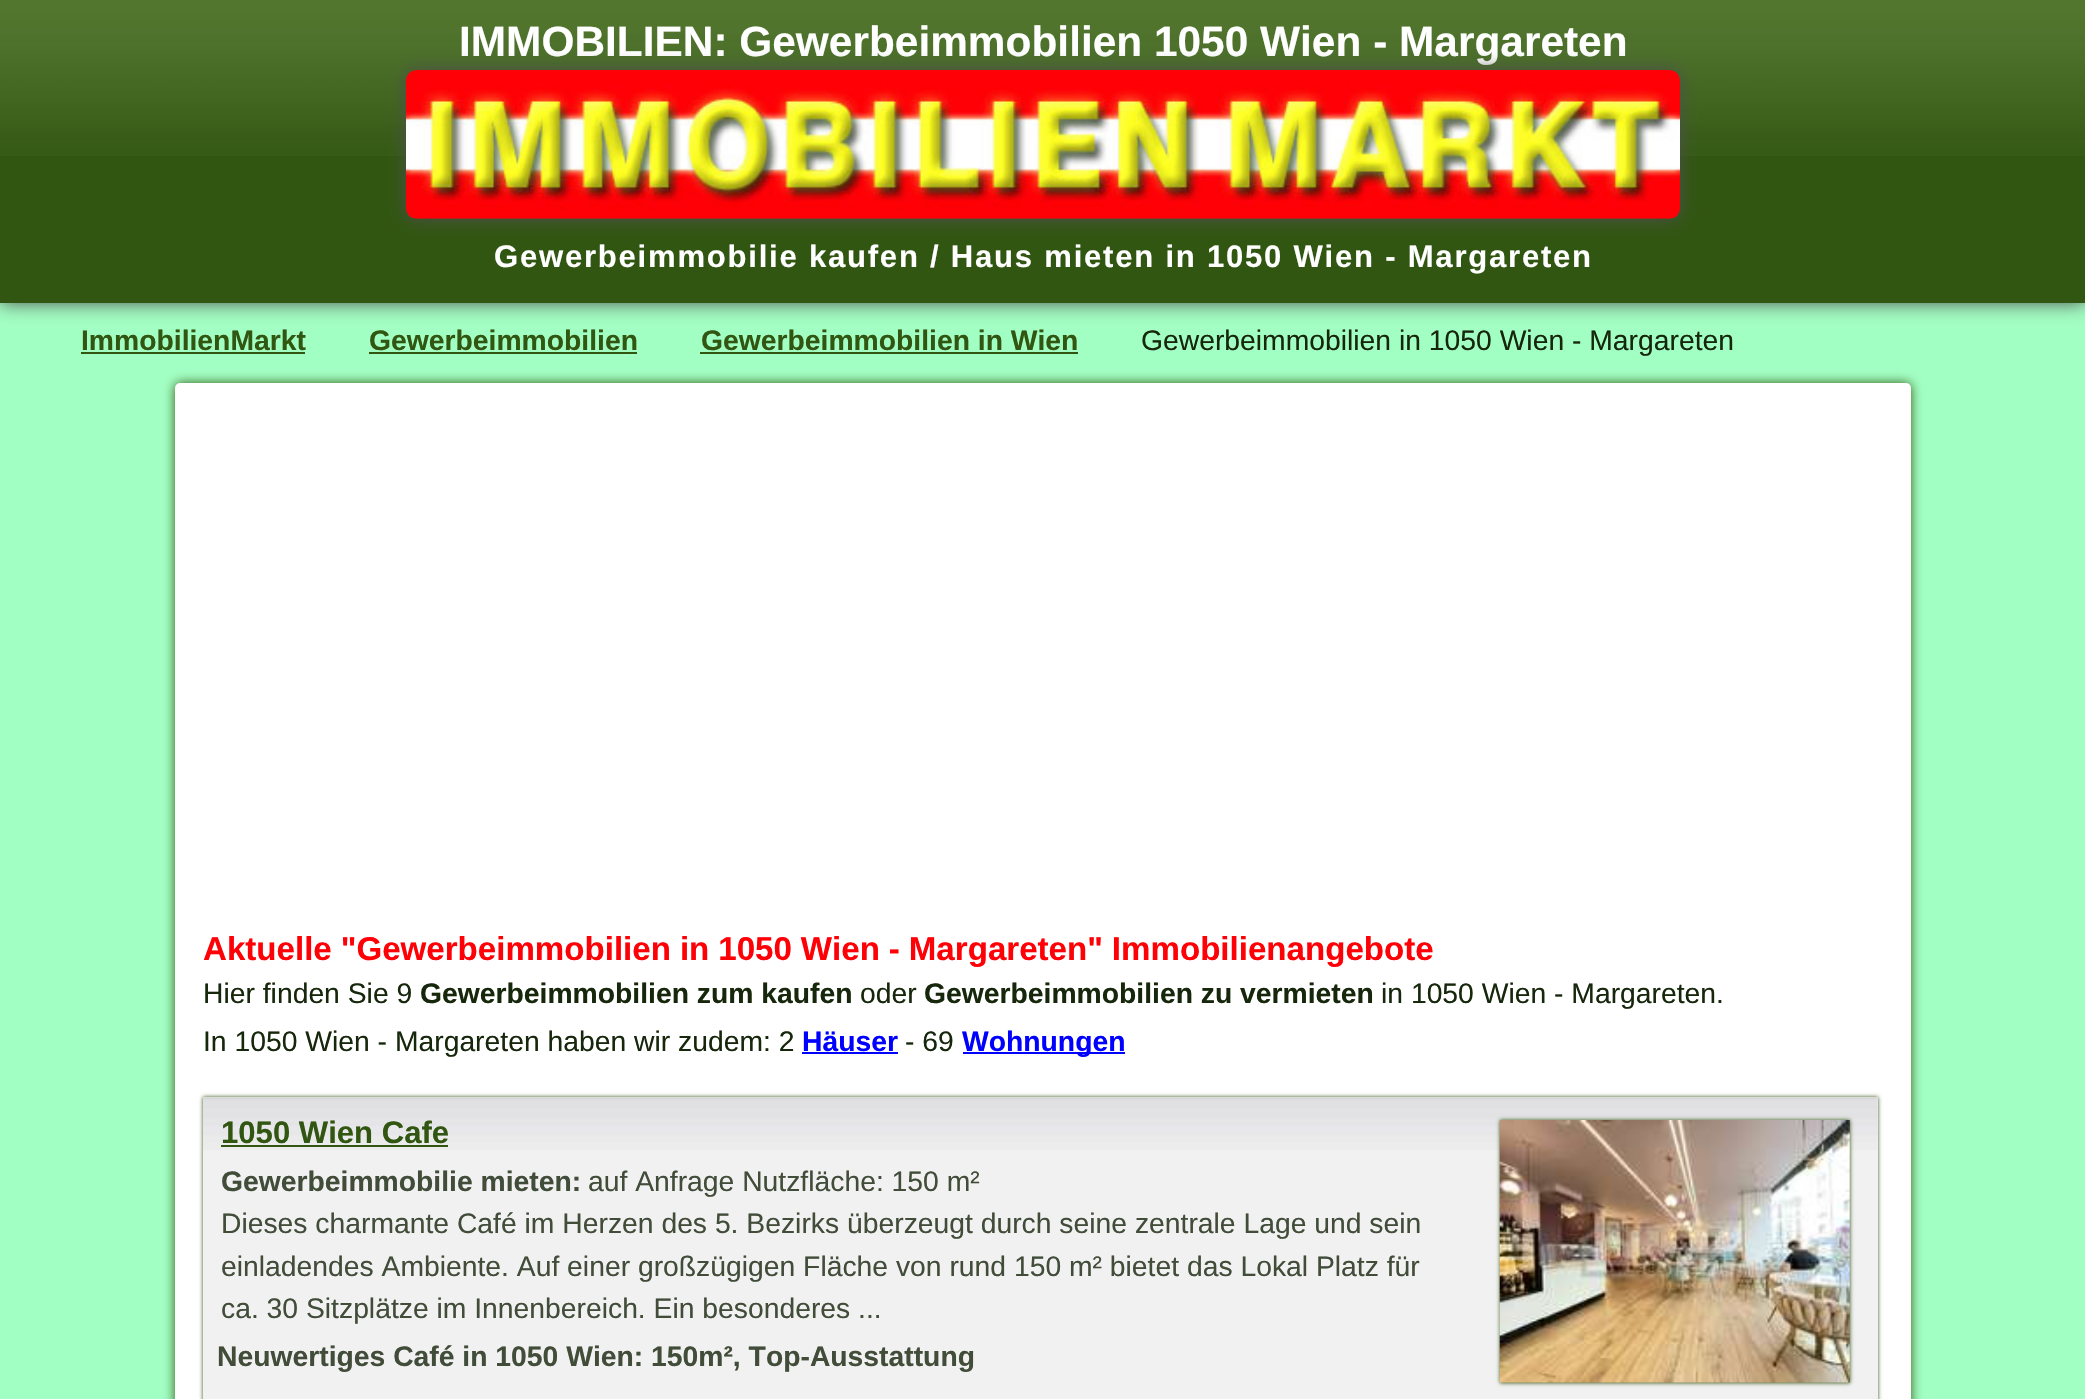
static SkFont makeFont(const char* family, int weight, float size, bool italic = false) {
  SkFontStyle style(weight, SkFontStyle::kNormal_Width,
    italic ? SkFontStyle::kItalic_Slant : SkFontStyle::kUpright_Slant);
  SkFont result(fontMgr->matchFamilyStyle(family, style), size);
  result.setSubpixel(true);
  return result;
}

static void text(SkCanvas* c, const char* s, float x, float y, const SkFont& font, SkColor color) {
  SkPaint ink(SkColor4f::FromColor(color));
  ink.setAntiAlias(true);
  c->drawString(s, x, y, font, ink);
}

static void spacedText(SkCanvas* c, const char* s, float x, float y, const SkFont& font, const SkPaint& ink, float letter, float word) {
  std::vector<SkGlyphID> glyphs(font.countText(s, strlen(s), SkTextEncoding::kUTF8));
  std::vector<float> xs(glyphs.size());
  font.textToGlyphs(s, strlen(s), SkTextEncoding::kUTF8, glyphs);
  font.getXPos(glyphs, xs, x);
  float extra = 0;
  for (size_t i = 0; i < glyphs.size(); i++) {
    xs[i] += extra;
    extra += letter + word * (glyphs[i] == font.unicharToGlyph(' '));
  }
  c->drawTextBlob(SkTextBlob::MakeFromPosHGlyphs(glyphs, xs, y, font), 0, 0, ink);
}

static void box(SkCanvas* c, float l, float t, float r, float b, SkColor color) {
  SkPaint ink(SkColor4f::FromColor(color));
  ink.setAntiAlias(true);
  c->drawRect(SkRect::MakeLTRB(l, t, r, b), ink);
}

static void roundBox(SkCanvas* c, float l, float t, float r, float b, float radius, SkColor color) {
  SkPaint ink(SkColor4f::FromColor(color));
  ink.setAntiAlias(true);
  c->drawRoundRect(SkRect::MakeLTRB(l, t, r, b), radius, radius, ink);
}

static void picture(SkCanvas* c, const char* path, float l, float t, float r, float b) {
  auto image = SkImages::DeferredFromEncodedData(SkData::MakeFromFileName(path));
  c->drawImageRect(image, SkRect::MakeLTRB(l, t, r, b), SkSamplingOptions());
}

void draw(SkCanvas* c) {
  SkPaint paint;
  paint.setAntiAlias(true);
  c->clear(0xffa2ffc3);
  paint.setColor(0xff4e4e4d);
  paint.setMaskFilter(SkMaskFilter::MakeBlur(kNormal_SkBlurStyle, 9));
  c->drawRect(SkRect::MakeLTRB(0, 0, 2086, 303), paint);
  paint.setMaskFilter(nullptr);
  box(c, 0, 156, 2085, 303, 0xff315611);
  picture(c, "img_01.png", 0, 0, 2085, 156);
  SkFont face1 = makeFont("Liberation Sans", 700, 42.4f);
  text(c, "IMMOBILIEN: Gewerbeimmobilien 1050 Wien - Margareten", 459, 56, face1, 0xffffffff);
  paint.setMaskFilter(SkMaskFilter::MakeBlur(kNormal_SkBlurStyle, 9));
  c->drawRoundRect(SkRect::MakeLTRB(406, 70, 1680, 219), 11, 11, paint);
  paint.setMaskFilter(nullptr);
  picture(c, "img_02.png", 406, 70, 1680, 219);
  SkFont face2 = makeFont("Liberation Sans", 700, 31.1f);
  paint.setColor(0xffffffff);
  spacedText(c, "Gewerbeimmobilie kaufen / Haus mieten in 1050 Wien - Margareten", 494, 267, face2, paint, 1.75f, 0);
  SkFont face3 = makeFont("Liberation Sans", 700, 28.3f);
  text(c, "ImmobilienMarkt", 81, 350, face3, 0xff315611);
  box(c, 81, 352, 305, 354, 0xff315611);
  text(c, "Gewerbeimmobilien", 369, 350, face3, 0xff315611);
  box(c, 369, 352, 637, 354, 0xff315611);
  text(c, "Gewerbeimmobilien in Wien", 701, 350, face3, 0xff315611);
  box(c, 700, 352, 1078, 354, 0xff315611);
  SkFont face4 = makeFont("Liberation Sans", 400, 28.3f);
  text(c, "Gewerbeimmobilien in 1050 Wien - Margareten", 1141, 350, face4, 0xff16270c);
  paint.setColor(0xff315611);
  paint.setMaskFilter(SkMaskFilter::MakeBlur(kNormal_SkBlurStyle, 6));
  c->drawRoundRect(SkRect::MakeLTRB(175, 383, 1911, 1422), 5, 5, paint);
  paint.setMaskFilter(nullptr);
  roundBox(c, 175, 383, 1911, 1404, 5, 0xffffffff);
  SkFont face5 = makeFont("Liberation Sans", 700, 33.1f);
  paint.setColor(0xffff0006);
  spacedText(c, "Aktuelle \"Gewerbeimmobilien in 1050 Wien - Margareten\" Immobilienangebote", 203, 960, face5, paint, 0, -0.25f);
  text(c, "Hier finden Sie 9", 203, 1003, face4, 0xff16270c);
  text(c, "Gewerbeimmobilien zum kaufen", 420, 1003, face3, 0xff16270c);
  text(c, "oder", 860, 1003, face4, 0xff16270c);
  text(c, "Gewerbeimmobilien zu vermieten", 924, 1003, face3, 0xff16270c);
  text(c, "in 1050 Wien - Margareten.", 1381, 1003, face4, 0xff16270c);
  text(c, "In 1050 Wien - Margareten haben wir zudem: 2", 203, 1051, face4, 0xff16270c);
  text(c, "Häuser", 802, 1051, face3, 0xff0000ff);
  box(c, 802, 1052, 898, 1054, 0xff0000ff);
  text(c, "- 69", 905, 1051, face4, 0xff16270c);
  box(c, 963, 1052, 1125, 1054, 0xff0000ff);
  text(c, "Wohnungen", 962, 1051, face3, 0xff0000ff);
  paint.setColor(0xff315611);
  paint.setMaskFilter(SkMaskFilter::MakeBlur(kNormal_SkBlurStyle, 2));
  c->drawRect(SkRect::MakeLTRB(203, 1097, 1878, 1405), paint);
  paint.setMaskFilter(nullptr);
  box(c, 203, 1097, 1878, 1399, 0xfff1f1f1);
  picture(c, "img_03.png", 203, 1097, 1878, 1150);
  text(c, "1050 Wien Cafe", 221, 1143, face2, 0xff315611);
  box(c, 221, 1145, 448, 1147, 0xff315611);
  text(c, "Gewerbeimmobilie mieten:", 221, 1191, face3, 0xff414c39);
  text(c, "auf Anfrage Nutzfläche: 150 m²", 588, 1191, face4, 0xff414c39);
  text(c, "Dieses charmante Café im Herzen des 5. Bezirks überzeugt durch seine zentrale Lage und sein", 221, 1233, face4, 0xff414c39);
  text(c, "einladendes Ambiente. Auf einer großzügigen Fläche von rund 150 m² bietet das Lokal Platz für", 221, 1276, face4, 0xff414c39);
  text(c, "ca. 30 Sitzplätze im Innenbereich. Ein besonderes ...", 221, 1318, face4, 0xff414c39);
  paint.setMaskFilter(SkMaskFilter::MakeBlur(kNormal_SkBlurStyle, 2));
  c->drawRect(SkRect::MakeLTRB(1500, 1120, 1850, 1383), paint);
  paint.setMaskFilter(nullptr);
  picture(c, "img_04.png", 1499, 1120, 1850, 1383);
  text(c, "Neuwertiges Café in 1050 Wien: 150m², Top-Ausstattung", 217, 1366, face3, 0xff414c39);
}
